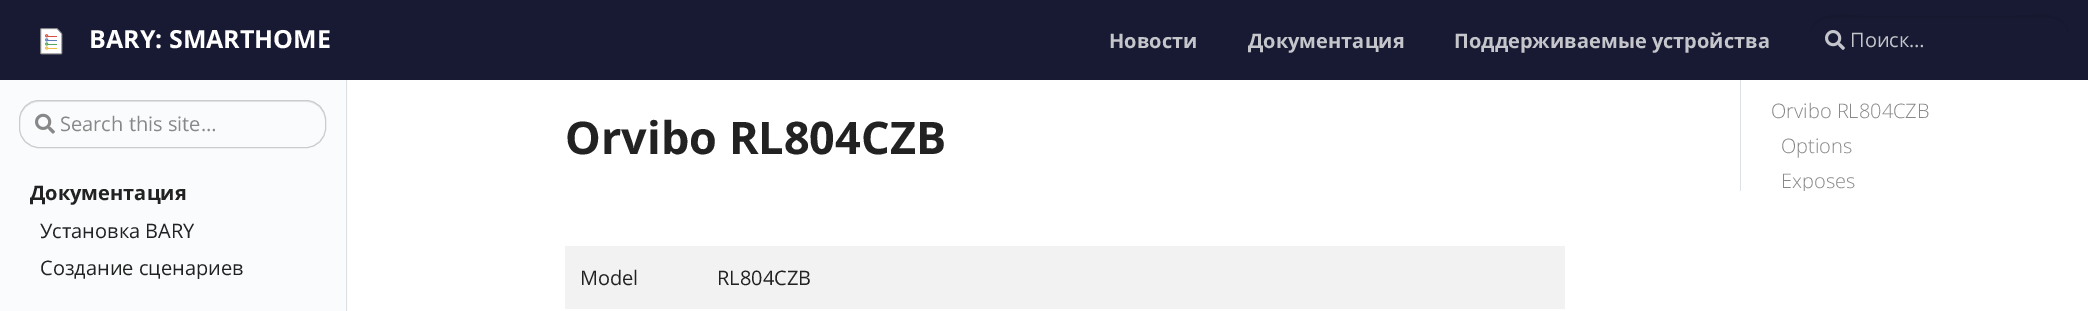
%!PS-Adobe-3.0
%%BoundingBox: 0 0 2088 311
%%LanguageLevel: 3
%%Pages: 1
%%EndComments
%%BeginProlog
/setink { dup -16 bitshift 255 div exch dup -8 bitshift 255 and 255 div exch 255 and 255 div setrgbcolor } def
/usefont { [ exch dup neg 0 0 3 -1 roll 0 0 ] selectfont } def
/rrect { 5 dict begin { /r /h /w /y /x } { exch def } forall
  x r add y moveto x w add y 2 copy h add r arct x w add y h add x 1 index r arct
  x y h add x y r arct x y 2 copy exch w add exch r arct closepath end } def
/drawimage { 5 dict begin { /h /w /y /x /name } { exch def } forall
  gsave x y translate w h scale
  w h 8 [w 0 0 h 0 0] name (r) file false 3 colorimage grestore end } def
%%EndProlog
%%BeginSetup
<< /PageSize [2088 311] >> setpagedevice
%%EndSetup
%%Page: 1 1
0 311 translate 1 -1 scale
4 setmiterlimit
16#FFFFFF setink
0 0 2088 311 rectfill
16#181A33 setink
0 0 2088 80 rectfill
(img1.raw) 40 28 23 27 drawimage
/OpenSans-Bold 25 usefont
16#FFFFFF setink
89 48 moveto (BARY: SMARTHOME) show
/OpenSans-Bold 20 usefont
16#C5C6CC setink
[
    [(Новости) 1109 48]
    [(Документация) 1248 48]
    [(Поддерживаемые устройства) 1454 48]
] { aload pop moveto show } forall
16#16182F setink
1830 18 moveto 2049 18 lineto 2060 18 2069 26 2069 38 curveto 2069 7 2032 16 2012 16 curveto 1866 16 lineto 1847 16 1810 7 1810 38 curveto 1810 26 1819 18 1830 18 curveto closepath fill
(img2.raw) 1825 30 20 20 drawimage
/OpenSans-Regular 20 usefont
16#C5C6CC setink
1850 47 moveto (Поиск…) show
16#F9FBFC setink
0 80 348 231 rectfill
16#DEE2E6 setink
346 80 1 231 rectfill
16#E6E8E9 setink
39 102 moveto 306 102 lineto 317 102 325 111 325 121 curveto 325 120 lineto 325 110 316 101 306 101 curveto 39 101 lineto 29 101 20 110 20 120 curveto 20 121 lineto 20 111 28 102 39 102 curveto closepath fill
16#CCCCCC setink
19.5 100.5 306 47 19.5 rrect stroke
(img3.raw) 35 113 20 21 drawimage
16#888888 setink
60 131 moveto (Search this site…) show
/OpenSans-Bold 20 usefont
16#222222 setink
30 200 moveto (Документация) show
/OpenSans-Regular 20 usefont
40 238 moveto (Установка BARY) show
gsave
0 168 345 111 rectclip
40 275 moveto (Создание сценариев) show
grestore
/OpenSans-Bold 45 usefont
565 154 moveto (Orvibo RL804CZB) show
16#F2F2F2 setink
565 246 1000 63 rectfill
/OpenSans-Regular 20 usefont
16#222222 setink
580 285 moveto (Model) show
717 285 moveto (RL804CZB) show
16#DEE2E6 setink
1740 80 1 111 rectfill
/OpenSans-Light 20 usefont
16#888888 setink
1771 118 moveto (Orvibo RL804CZB) show
1781 153 moveto (Options) show
gsave
1741 80 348 111 rectclip
1781 188 moveto (Exposes) show
grestore
showpage
%%EOF
